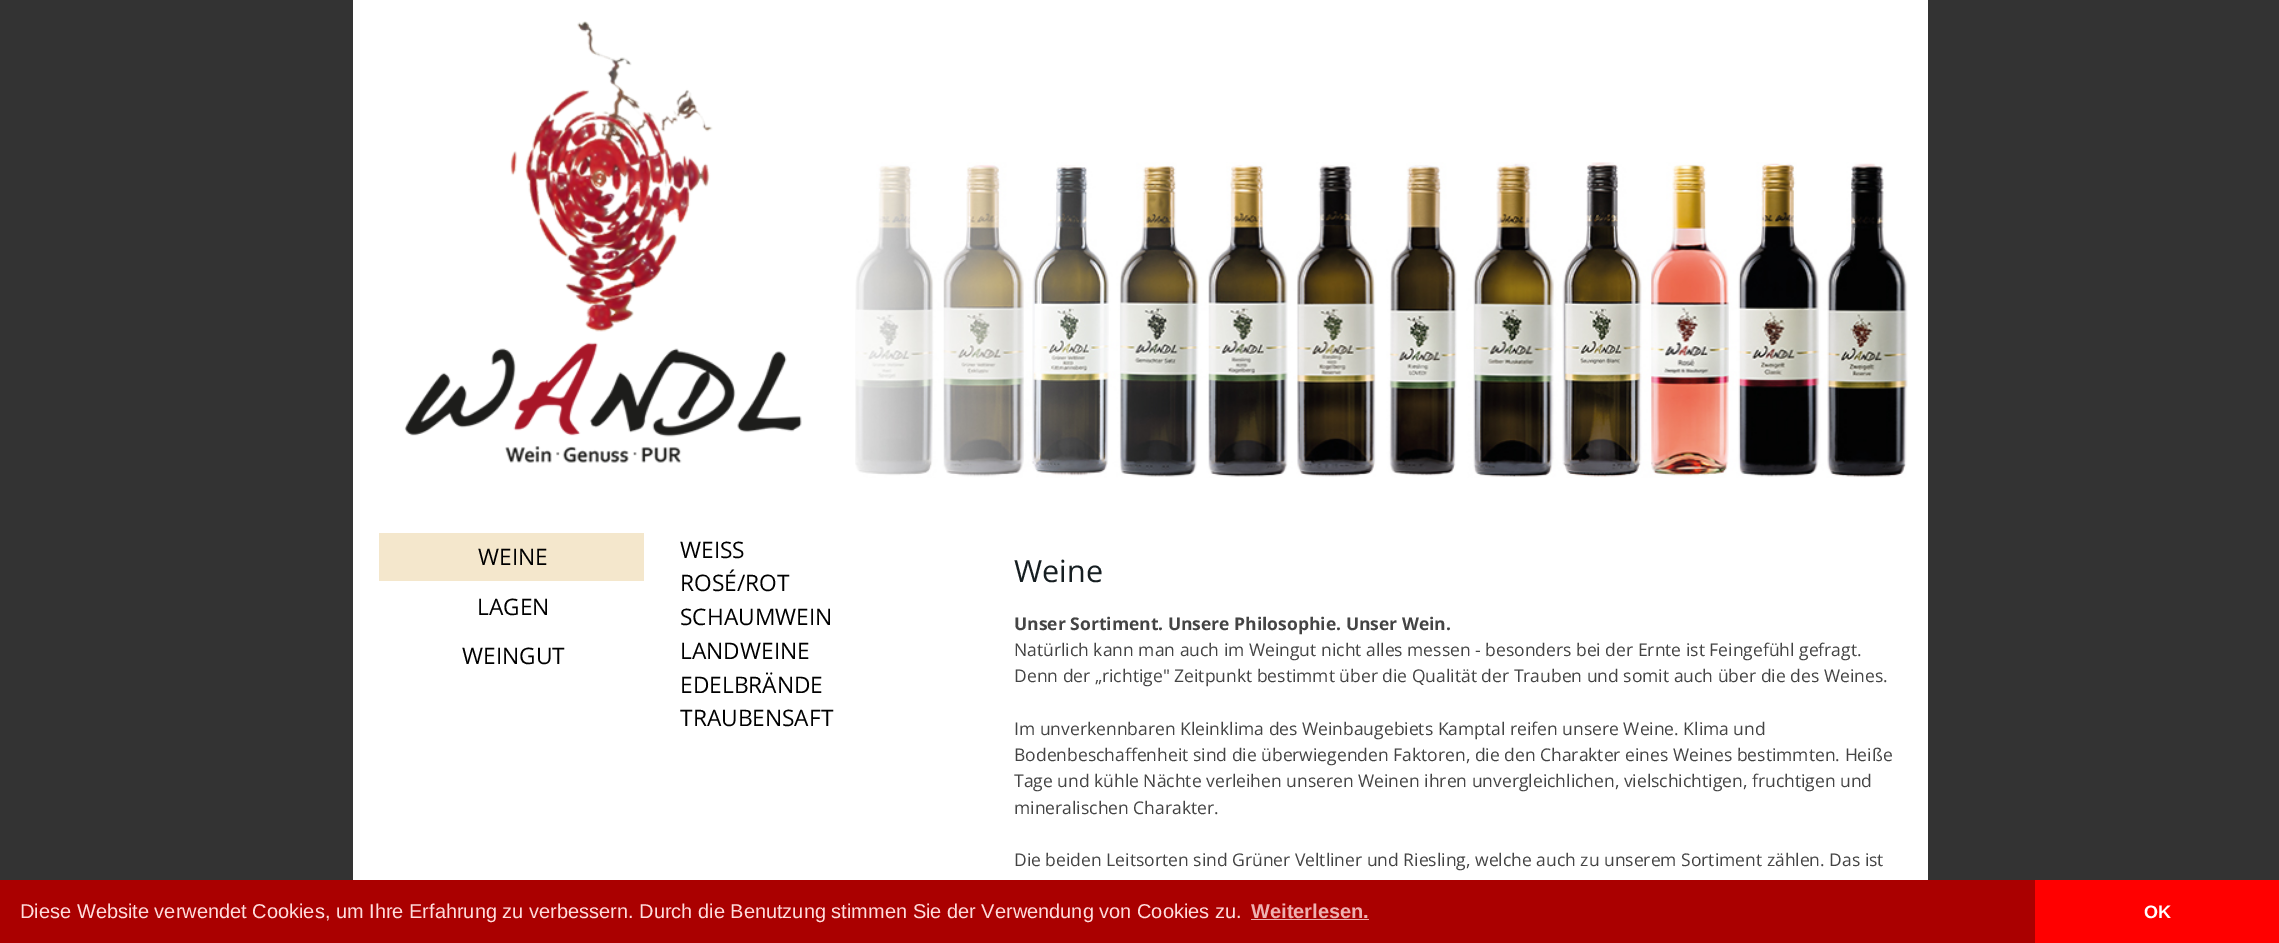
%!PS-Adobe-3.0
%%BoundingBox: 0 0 2279 943
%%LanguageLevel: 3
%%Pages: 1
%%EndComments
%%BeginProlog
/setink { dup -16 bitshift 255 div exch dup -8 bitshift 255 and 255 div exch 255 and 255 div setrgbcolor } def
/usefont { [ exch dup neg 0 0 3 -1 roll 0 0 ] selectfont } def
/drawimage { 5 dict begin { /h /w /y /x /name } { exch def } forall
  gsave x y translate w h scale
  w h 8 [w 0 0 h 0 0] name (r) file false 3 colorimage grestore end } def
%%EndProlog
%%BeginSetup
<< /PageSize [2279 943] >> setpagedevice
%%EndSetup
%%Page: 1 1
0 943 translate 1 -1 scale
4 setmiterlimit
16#333333 setink
0 0 2279 943 rectfill
16#FFFFFF setink
353 0 1575 880 rectfill
(img1.raw) 404 21 398 442 drawimage
(img2.raw) 855 162 1053 316 drawimage
16#F4E7CC setink
379 533 265 48 rectfill
/OpenSans-Regular 22.75 usefont
16#000000 setink
[
    [(WEINE) 478 565]
    [(LAGEN) 477 615]
    [(WEINGUT) 462 664]
    [(WEISS) 680 558]
    [(ROSÉ/ROT) 680 591]
    [(SCHAUMWEIN) 680 625]
    [(LANDWEINE) 680 659]
    [(EDELBRÄNDE) 680 693]
    [(TRAUBENSAFT) 680 726]
] { aload pop moveto show } forall
/OpenSans-Regular 30.5 usefont
16#161E21 setink
1014 582 moveto (Weine) show
/OpenSans-Bold 17.5 usefont
16#444444 setink
1014 630 moveto (Unser Sortiment. Unsere Philosophie. Unser Wein.) show
/OpenSans-Regular 17.5 usefont
[
    [(Natürlich kann man auch im Weingut nicht alles messen - besonders bei der Ernte ist Feingefühl gefragt.) 1014 656]
    [(Denn der „richtige" Zeitpunkt bestimmt über die Qualität der Trauben und somit auch über die des Weines.) 1014 682]
    [(Im unverkennbaren Kleinklima des Weinbaugebiets Kamptal reifen unsere Weine. Klima und) 1014 735]
    [(Bodenbeschaffenheit sind die überwiegenden Faktoren, die den Charakter eines Weines bestimmten. Heiße) 1014 761]
    [(Tage und kühle Nächte verleihen unseren Weinen ihren unvergleichlichen, vielschichtigen, fruchtigen und) 1014 787]
    [(mineralischen Charakter.) 1014 814]
    [(Die beiden Leitsorten sind Grüner Veltliner und Riesling, welche auch zu unserem Sortiment zählen. Das ist) 1014 866]
] { aload pop moveto show } forall
16#AA0000 setink
0 880 2035 63 rectfill
/LiberationSans-Regular 20 usefont
16#FFDDDD setink
20 918 moveto (Diese Website verwendet Cookies, um Ihre Erfahrung zu verbessern. Durch die Benutzung stimmen Sie der Verwendung von Cookies zu.) show
/LiberationSans-Bold 20 usefont
16#EEB1B1 setink
1251 918 moveto (Weiterlesen.) show
1251 919 118 1 rectfill
16#FF0000 setink
2035 880 244 63 rectfill
/LiberationSans-Bold 18 usefont
16#FFFFFF setink
2144 918 moveto (OK) show
showpage
%%EOF
